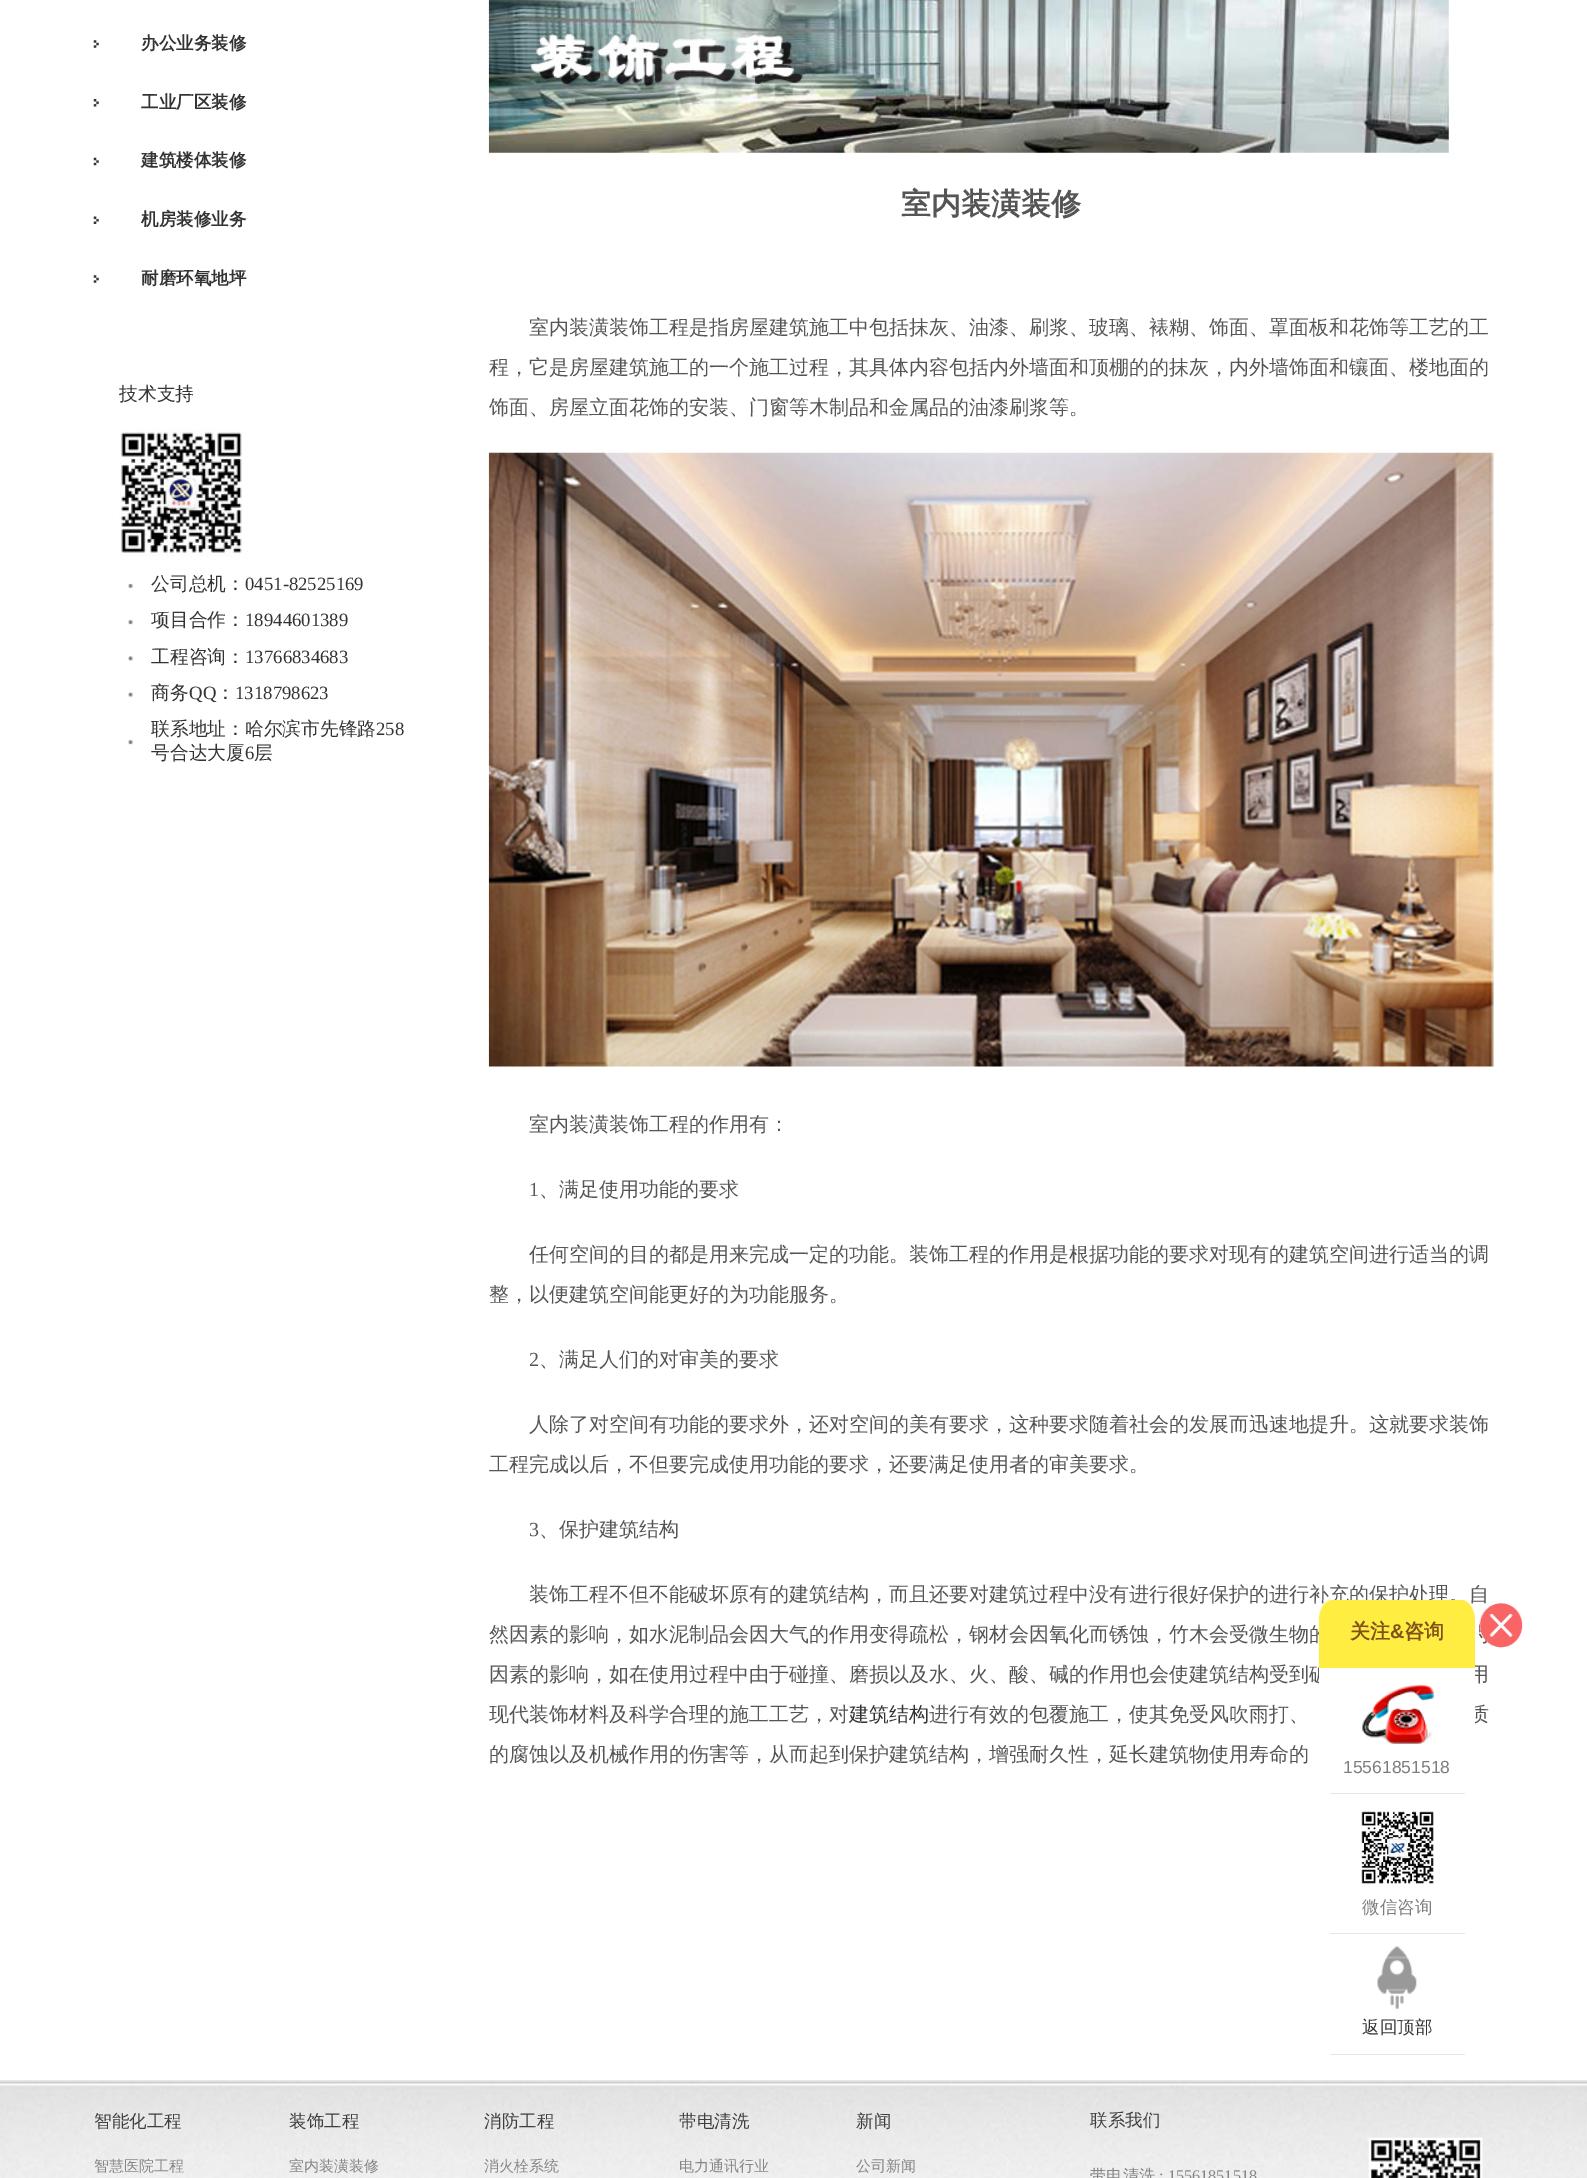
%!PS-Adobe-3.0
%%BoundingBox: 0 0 1587 2178
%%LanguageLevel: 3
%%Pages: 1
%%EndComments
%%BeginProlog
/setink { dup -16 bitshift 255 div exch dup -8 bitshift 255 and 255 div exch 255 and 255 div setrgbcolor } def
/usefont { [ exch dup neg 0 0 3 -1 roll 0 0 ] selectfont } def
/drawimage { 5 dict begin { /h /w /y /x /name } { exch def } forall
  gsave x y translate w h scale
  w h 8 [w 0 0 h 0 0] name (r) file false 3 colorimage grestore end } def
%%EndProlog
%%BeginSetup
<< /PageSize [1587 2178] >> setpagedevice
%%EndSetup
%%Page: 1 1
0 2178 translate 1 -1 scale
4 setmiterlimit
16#FFFFFF setink
0 0 1587 2178 rectfill
(img1.raw) 93 40 6 8 drawimage
/WenQuanYiZenHei-Bold 17.5 usefont
16#333333 setink
141 49 moveto (办公业务装修) show
(img2.raw) 93 99 6 8 drawimage
141 108 moveto (工业厂区装修) show
(img3.raw) 93 157 6 9 drawimage
141 166 moveto (建筑楼体装修) show
(img4.raw) 93 216 6 8 drawimage
141 225 moveto (机房装修业务) show
(img1.raw) 93 275 6 8 drawimage
141 284 moveto (耐磨环氧地坪) show
/WenQuanYiZenHei-Medium 18.75 usefont
119 400 moveto (技术支持) show
(img5.raw) 119 429 123 128 drawimage
(img6.raw) 128 583 5 5 drawimage
151 590 moveto (公司总机：) show
/LiberationSerif-Regular 18.75 usefont
245 590 moveto (0451-82525169) show
(img7.raw) 128 620 5 5 drawimage
/WenQuanYiZenHei-Medium 18.75 usefont
151 626 moveto (项目合作：) show
/LiberationSerif-Regular 18.75 usefont
245 626 moveto (18944601389) show
(img8.raw) 128 656 5 5 drawimage
/WenQuanYiZenHei-Medium 18.75 usefont
151 663 moveto (工程咨询：) show
/LiberationSerif-Regular 18.75 usefont
245 663 moveto (13766834683) show
(img9.raw) 128 692 5 5 drawimage
/WenQuanYiZenHei-Medium 18.75 usefont
151 699 moveto (商务) show
/LiberationSerif-Regular 18.75 usefont
189 699 moveto (QQ) show
/WenQuanYiZenHei-Medium 18.75 usefont
216 699 moveto (：) show
/LiberationSerif-Regular 18.75 usefont
235 699 moveto (1318798623) show
(img7.raw) 128 740 5 5 drawimage
/WenQuanYiZenHei-Medium 18.75 usefont
151 735 moveto (联系地址：哈尔滨市先锋路) show
/LiberationSerif-Regular 18.75 usefont
376 735 moveto (258) show
/WenQuanYiZenHei-Medium 18.75 usefont
151 759 moveto (号合达大厦) show
/LiberationSerif-Regular 18.75 usefont
245 759 moveto (6) show
/WenQuanYiZenHei-Medium 18.75 usefont
254 759 moveto (层) show
(img10.raw) 488 0 961 153 drawimage
/WenQuanYiZenHei-Bold 30 usefont
16#555555 setink
901 214 moveto (室内装潢装修) show
/WenQuanYiZenHei-Medium 20 usefont
[
    [(室内装潢装饰工程是指房屋建筑施工中包括抹灰、油漆、刷浆、玻璃、裱糊、饰面、罩面板和花饰等工艺的工) 529 334]
    [(程，它是房屋建筑施工的一个施工过程，其具体内容包括内外墙面和顶棚的的抹灰，内外墙饰面和镶面、楼地面的) 489 374]
    [(饰面、房屋立面花饰的安装、门窗等木制品和金属品的油漆刷浆等。) 489 414]
] { aload pop moveto show } forall
(img11.raw) 488 452 1006 615 drawimage
529 1131 moveto (室内装潢装饰工程的作用有：) show
/LiberationSerif-Regular 20 usefont
529 1196 moveto (1) show
/WenQuanYiZenHei-Medium 20 usefont
[
    [(、满足使用功能的要求) 539 1196]
    [(任何空间的目的都是用来完成一定的功能。装饰工程的作用是根据功能的要求对现有的建筑空间进行适当的调) 529 1261]
    [(整，以便建筑空间能更好的为功能服务。) 489 1301]
] { aload pop moveto show } forall
/LiberationSerif-Regular 20 usefont
529 1366 moveto (2) show
/WenQuanYiZenHei-Medium 20 usefont
[
    [(、满足人们的对审美的要求) 539 1366]
    [(人除了对空间有功能的要求外，还对空间的美有要求，这种要求随着社会的发展而迅速地提升。这就要求装饰) 529 1431]
    [(工程完成以后，不但要完成使用功能的要求，还要满足使用者的审美要求。) 489 1471]
] { aload pop moveto show } forall
/LiberationSerif-Regular 20 usefont
529 1536 moveto (3) show
/WenQuanYiZenHei-Medium 20 usefont
[
    [(、保护建筑结构) 539 1536]
    [(装饰工程不但不能破坏原有的建筑结构，而且还要对建筑过程中没有进行很好保护的进行补充的保护处理。自) 529 1601]
    [(然因素的影响，如水泥制品会因大气的作用变得疏松，钢材会因氧化而锈蚀，竹木会受微生物的) 489 1641]
    [(因素的影响，如在使用过程中由于碰撞、磨损以及水、火、酸、碱的作用也会使建筑结构受到破) 489 1681]
    [(用) 1469 1681]
    [(现代装饰材料及科学合理的施工工艺，对) 489 1721]
] { aload pop moveto show } forall
16#333333 setink
849 1721 moveto (建筑结构) show
16#555555 setink
[
    [(进行有效的包覆施工，使其免受风吹雨打、) 929 1721]
    [(质) 1469 1721]
    [(的腐蚀以及机械作用的伤害等，从而起到保护建筑结构，增强耐久性，延长建筑物使用寿命的) 489 1761]
] { aload pop moveto show } forall
(img12.raw) 1318 1600 157 76 drawimage
/WenQuanYiZenHei-Bold 20 usefont
16#81511C setink
1350 1638 moveto (关注) show
/LiberationSans-Bold 20 usefont
1390 1638 moveto (&) show
/WenQuanYiZenHei-Bold 20 usefont
1404 1638 moveto (咨询) show
16#FFFFFF setink
1319 1668 156 56 rectfill
16#E5E5E5 setink
1330 1793 135 1 rectfill
(img13.raw) 1362 1684 72 60 drawimage
/LiberationSans-Regular 17.5 usefont
16#7D7D7D setink
1343 1773 moveto (15561851518) show
16#E5E5E5 setink
1330 1933 135 1 rectfill
(img14.raw) 1361 1811 73 73 drawimage
/WenQuanYiZenHei-Medium 17.5 usefont
16#7D7D7D setink
1362 1913 moveto (微信咨询) show
16#E5E5E5 setink
1330 2054 135 1 rectfill
(img15.raw) 1377 1946 40 63 drawimage
16#333333 setink
1362 2033 moveto (返回顶部) show
(img16.raw) 1479 1603 44 45 drawimage
(img17.raw) 0 2081 1587 97 drawimage
16#E5E6E5 setink
0 2080 1587 1 rectfill
16#3E3E3E setink
94 2127 moveto (智能化工程) show
/WenQuanYiZenHei-Medium 15 usefont
16#868686 setink
94 2171 moveto (智慧医院工程) show
/WenQuanYiZenHei-Medium 17.5 usefont
16#3E3E3E setink
289 2127 moveto (装饰工程) show
/WenQuanYiZenHei-Medium 15 usefont
16#868686 setink
289 2171 moveto (室内装潢装修) show
/WenQuanYiZenHei-Medium 17.5 usefont
16#3E3E3E setink
484 2127 moveto (消防工程) show
/WenQuanYiZenHei-Medium 15 usefont
16#868686 setink
484 2171 moveto (消火栓系统) show
/WenQuanYiZenHei-Medium 17.5 usefont
16#3E3E3E setink
679 2127 moveto (带电清洗) show
/WenQuanYiZenHei-Medium 15 usefont
16#868686 setink
679 2171 moveto (电力通讯行业) show
/WenQuanYiZenHei-Medium 17.5 usefont
16#3E3E3E setink
856 2127 moveto (新闻) show
/WenQuanYiZenHei-Medium 15 usefont
16#868686 setink
856 2171 moveto (公司新闻) show
/WenQuanYiZenHei-Medium 17.5 usefont
16#3E3E3E setink
1090 2126 moveto (联系我们) show
/WenQuanYiZenHei-Medium 16.25 usefont
16#868686 setink
1090 2181 moveto (带电清洗) show
/LiberationSerif-Regular 16.25 usefont
1159 2181 moveto (: 15561851518) show
(img18.raw) 1368 2137 115 41 drawimage
showpage
%%EOF
